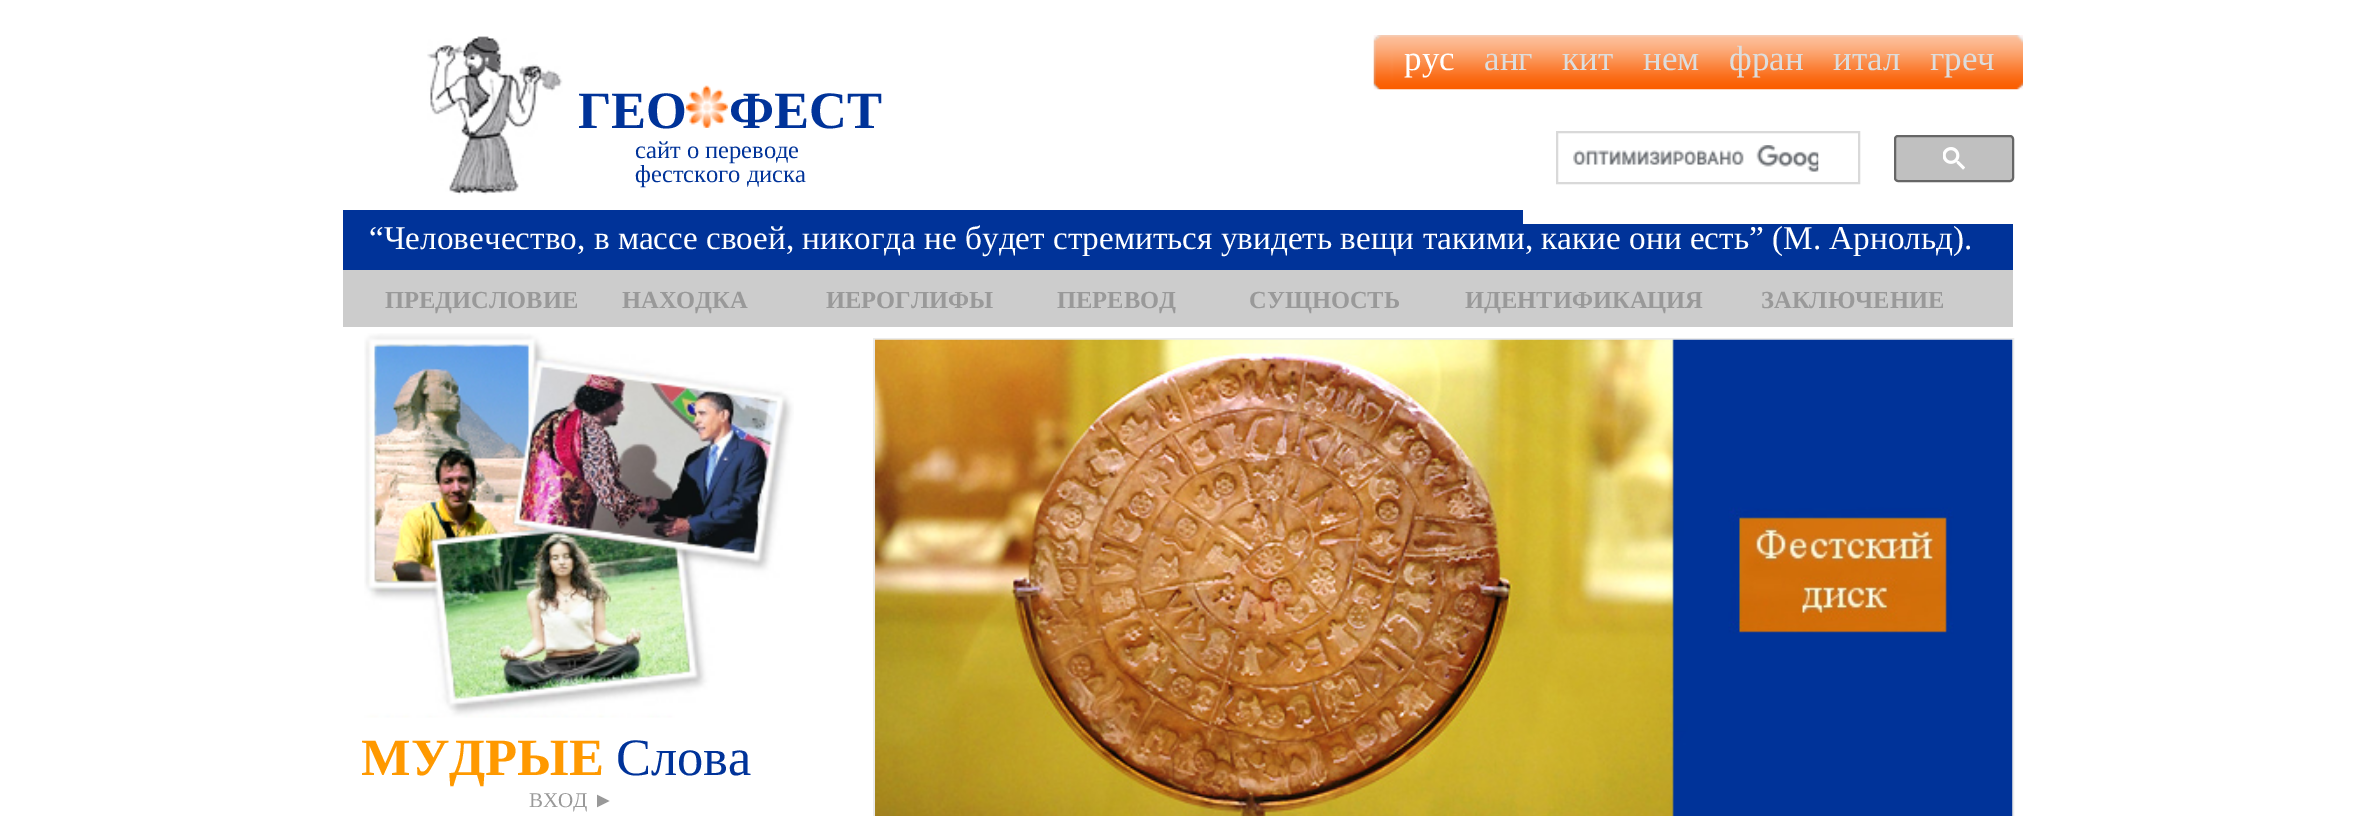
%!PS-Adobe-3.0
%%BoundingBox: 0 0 2366 816
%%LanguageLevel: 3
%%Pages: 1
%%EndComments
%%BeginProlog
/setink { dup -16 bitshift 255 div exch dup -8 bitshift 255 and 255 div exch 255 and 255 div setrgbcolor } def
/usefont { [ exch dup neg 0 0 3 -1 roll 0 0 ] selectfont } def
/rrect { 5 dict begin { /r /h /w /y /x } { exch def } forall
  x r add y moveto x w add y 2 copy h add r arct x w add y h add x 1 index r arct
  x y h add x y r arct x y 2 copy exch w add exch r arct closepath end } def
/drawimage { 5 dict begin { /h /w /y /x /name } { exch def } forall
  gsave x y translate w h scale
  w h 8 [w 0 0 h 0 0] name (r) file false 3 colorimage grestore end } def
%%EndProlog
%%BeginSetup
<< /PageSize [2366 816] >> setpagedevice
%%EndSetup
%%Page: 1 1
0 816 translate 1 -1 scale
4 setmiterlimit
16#FFFFFF setink
0 0 2366 816 rectfill
(img1.raw) 1373 35 650 55 drawimage
/LiberationSerif-Regular 35 usefont
1404 70 moveto (рус) show
16#DDDDDD setink
[
    [(анг) 1484 70]
    [(кит) 1562 70]
    [(нем) 1643 70]
    [(фран) 1729 70]
    [(итал) 1833 70]
    [(греч) 1930 70]
] { aload pop moveto show } forall
16#003399 setink
343 210 1670 60 rectfill
16#FFFFFF setink
1523 210 490 14 rectfill
16#D9D9D9 setink
2 setlinewidth
1557 132 302 51 rectstroke
(img2.raw) 1573 145 246 27 drawimage
16#C0C0C0 setink
1895 136 118 45 3 rrect gsave fill grestore
16#666666 setink
stroke
(img3.raw) 1943 147 22 23 drawimage
(img4.raw) 427 36 136 159 drawimage
/LiberationSerif-Bold 52.5 usefont
16#003399 setink
578 128 moveto (ГЕО) show
(img5.raw) 686 85 42 43 drawimage
729 128 moveto (ФЕСТ) show
/LiberationSerif-Regular 24.5 usefont
635 158 moveto (сайт о переводе) show
635 182 moveto (фестского диска) show
/LiberationSerif-Regular 33.25 usefont
16#FFFFFF setink
369 249 moveto (“Человечество, в массе своей, никогда не будет стремиться увидеть вещи такими, какие они есть” \(М. Арнольд\).) show
16#CCCCCC setink
343 270 1670 57 rectfill
/LiberationSerif-Bold 24.5 usefont
16#999999 setink
[
    [(ПРЕДИСЛОВИЕ) 385 308]
    [(НАХОДКА) 622 308]
    [(ИЕРОГЛИФЫ) 826 308]
    [(ПЕРЕВОД) 1057 308]
    [(СУЩНОСТЬ) 1249 308]
    [(ИДЕНТИФИКАЦИЯ) 1465 308]
    [(ЗАКЛЮЧЕНИЕ) 1761 308]
] { aload pop moveto show } forall
(img6.raw) 364 333 430 385 drawimage
/LiberationSerif-Bold 52.5 usefont
16#FF9900 setink
361 775 moveto (МУДРЫЕ) show
/LiberationSerif-Regular 52.5 usefont
16#003399 setink
616 775 moveto (Слова) show
/LiberationSerif-Regular 21 usefont
16#999999 setink
529 807 moveto (ВХОД ►) show
16#EBEBEA setink
874 339 1139 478 rectstroke
(img7.raw) 875 339 1138 477 drawimage
showpage
%%EOF
